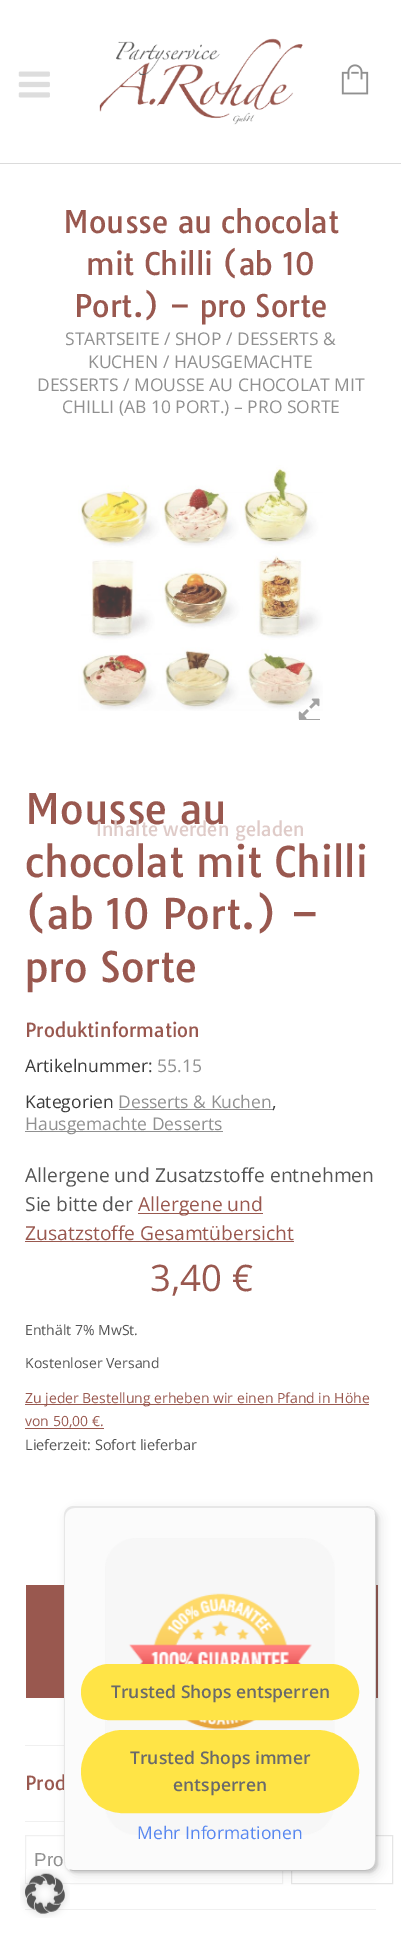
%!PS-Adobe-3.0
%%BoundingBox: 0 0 401 1938
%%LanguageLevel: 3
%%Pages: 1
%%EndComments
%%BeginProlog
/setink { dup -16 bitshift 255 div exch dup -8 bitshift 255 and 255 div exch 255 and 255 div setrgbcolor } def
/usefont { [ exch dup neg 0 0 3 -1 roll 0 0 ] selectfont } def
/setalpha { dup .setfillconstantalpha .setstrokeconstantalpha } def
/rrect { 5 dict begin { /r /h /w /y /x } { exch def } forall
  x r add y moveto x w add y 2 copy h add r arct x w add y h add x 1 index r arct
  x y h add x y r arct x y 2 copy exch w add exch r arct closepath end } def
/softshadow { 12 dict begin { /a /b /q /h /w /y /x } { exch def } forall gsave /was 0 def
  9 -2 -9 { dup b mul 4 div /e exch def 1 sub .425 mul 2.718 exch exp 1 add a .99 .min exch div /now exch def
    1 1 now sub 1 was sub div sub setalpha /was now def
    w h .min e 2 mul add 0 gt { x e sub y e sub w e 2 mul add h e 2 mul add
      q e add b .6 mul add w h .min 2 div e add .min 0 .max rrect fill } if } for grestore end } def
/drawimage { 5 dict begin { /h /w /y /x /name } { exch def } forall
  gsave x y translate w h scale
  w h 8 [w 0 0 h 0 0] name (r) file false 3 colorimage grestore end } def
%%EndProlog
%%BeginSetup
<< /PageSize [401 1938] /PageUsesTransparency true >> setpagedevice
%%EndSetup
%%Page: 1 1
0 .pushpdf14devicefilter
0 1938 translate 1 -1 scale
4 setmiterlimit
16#FFFFFF setink
0 0 401 1938 rectfill
16#DBDBDB setink
0 163 401 1 rectfill
(img1.raw) 18 71 32 27 drawimage
(img2.raw) 99 38 204 87 drawimage
(img3.raw) 341 64 28 31 drawimage
/Tauri-Regular 30 usefont
16#99584F setink
[
    [(Mousse au chocolat) 63 233]
    [(mit Chilli \(ab 10) 86 275]
    [(Port.\) – pro Sorte) 74 317]
] { aload pop moveto show } forall
/OpenSans-Regular 17.5 usefont
16#909090 setink
[
    [(STARTSEITE / SHOP / DESSERTS &) 65 345]
    [(KUCHEN / HAUSGEMACHTE) 88 368]
    [(DESSERTS / MOUSSE AU CHOCOLAT MIT) 37 391]
    [(CHILLI \(AB 10 PORT.\) – PRO SORTE) 62 413]
] { aload pop moveto show } forall
(img4.raw) 78 465 245 246 drawimage
16#A3A3A3 setink
299 719 21 1 rectfill
(img5.raw) 298 698 22 21 drawimage
/Tauri-Regular 40.5 usefont
16#99584F setink
[
    [(Mousse au) 25 824]
    [(chocolat mit Chilli) 25 877]
    [(\(ab 10 Port.\) –) 25 929]
    [(pro Sorte) 25 982]
] { aload pop moveto show } forall
/Tauri-Regular 18.75 usefont
25 1037 moveto (Produktinformation) show
/OpenSans-Regular 17.5 usefont
16#3B3B3B setink
25 1072 moveto (Artikelnummer:) show
16#909090 setink
157 1072 moveto (55.15) show
16#3B3B3B setink
25 1108 moveto (Kategorien) show
16#909090 setink
118 1108 moveto (Desserts & Kuchen) show
119 1109 154 1 rectfill
16#3B3B3B setink
272 1108 moveto (,) show
16#909090 setink
25 1131 198 1 rectfill
25 1130 moveto (Hausgemachte Desserts) show
/OpenSans-Regular 19.25 usefont
16#545454 setink
25 1182 moveto (Allergene und Zusatzstoffe entnehmen) show
25 1211 moveto (Sie bitte der) show
16#99594F setink
138 1213 125 1 rectfill
16#99584F setink
138 1211 moveto (Allergene und) show
25 1240 moveto (Zusatzstoffe Gesamtübersicht) show
16#99594F setink
25 1241 269 1 rectfill
/OpenSans-Regular 36.5 usefont
16#99584F setink
150 1291 moveto (3,40 €) show
/OpenSans-Regular 14 usefont
16#545454 setink
25 1335 moveto (Enthält 7% MwSt.) show
25 1368 moveto (Kostenloser Versand) show
16#99594F setink
25 1404 344 1 rectfill
16#99584F setink
25 1403 moveto (Zu jeder Bestellung erheben wir einen Pfand in Höhe) show
25 1426 moveto (von 50,00 €.) show
16#99594F setink
25 1428 79 1 rectfill
/OpenSans-Regular 14.5 usefont
16#545454 setink
25 1450 moveto (Lieferzeit: Sofort lieferbar) show
[
    [26 1585 352 113 16#99584F]
    [25 1745 39 1 16#F0F0F0]
    [25 1821 39 1 16#F0F0F0]
] { aload pop setink rectfill } forall
/Tauri-Regular 18.75 usefont
16#99584F setink
25 1790 moveto (Prod) show
16#F0F0F0 setink
25.5 1835.5 257 48 rectstroke
/LiberationSans-Regular 18.75 usefont
16#909090 setink
34 1866 moveto (Pro) show
16#E5E5E5 setink
291.5 1835.5 101 48 rectstroke
16#F0F0F0 setink
25 1909 351 1 rectfill
/Tauri-Regular 18.75 usefont
16#DFCBC8 setink
96 836 moveto (Inhalte werden geladen) show
16#3B3B3B setink
68 1510 312 365 10 5 0.15 softshadow
65 1508 313 365 10 1 0.15 softshadow
16#FBFBFB setink
64 1506 312 365 10 rrect fill
0.1 setalpha
16#3B3B3B setink
75 1508 moveto 368 1508 lineto 370 1508 372 1509 374 1510 curveto 372 1508 369 1506 366 1506 curveto 74 1506 lineto 68 1506 64 1510 64 1516 curveto 64 1861 lineto 64 1863 65 1866 66 1867 curveto 65 1866 65 1864 65 1862 curveto 65 1518 lineto 65 1512 69 1508 75 1508 curveto closepath fill
0.2 setalpha
68 1869 moveto 70 1870 72 1871 74 1871 curveto 366 1871 lineto 372 1871 376 1867 376 1861 curveto 376 1516 lineto 376 1514 375 1511 374 1510 curveto 375 1511 375 1513 375 1515 curveto 375 1860 lineto 375 1866 371 1870 365 1870 curveto 72 1870 lineto closepath fill
16#616161 setink
68 1869 moveto 69 1870 72 1871 74 1871 curveto 366 1871 lineto 372 1871 376 1867 376 1861 curveto 376 1860 lineto 376 1866 371 1870 366 1870 curveto 73 1870 lineto 71 1870 69 1870 68 1869 curveto closepath 374 1510 moveto 372 1507 369 1506 366 1506 curveto 369 1506 372 1507 374 1510 curveto closepath eofill
0.3 setalpha
16#FFFFFF setink
366 1871 moveto 372 1871 376 1867 376 1861 curveto 376 1866 371 1871 366 1871 curveto closepath 374 1510 moveto 372 1507 369 1506 366 1506 curveto 369 1506 372 1507 374 1510 curveto closepath eofill
1 setalpha
(img6.raw) 105 1538 230 297 drawimage
16#FFE446 setink
82.5 1665.5 275 53 26.5 rrect gsave fill grestore
3 setlinewidth
stroke
/OpenSans-SemiBold 17.5 usefont
16#6A6A6A setink
111 1698 moveto (Trusted Shops entsperren) show
16#FFE446 setink
82.5 1731.5 275 80 40 rrect gsave fill grestore
stroke
16#6A6A6A setink
130 1764 moveto (Trusted Shops immer) show
173 1791 moveto (entsperren) show
/OpenSans-Regular 17.5 usefont
16#5787F0 setink
137 1839 moveto (Mehr Informationen) show
(img7.raw) 20 1869 50 49 drawimage
.poppdf14devicefilter showpage
%%EOF
